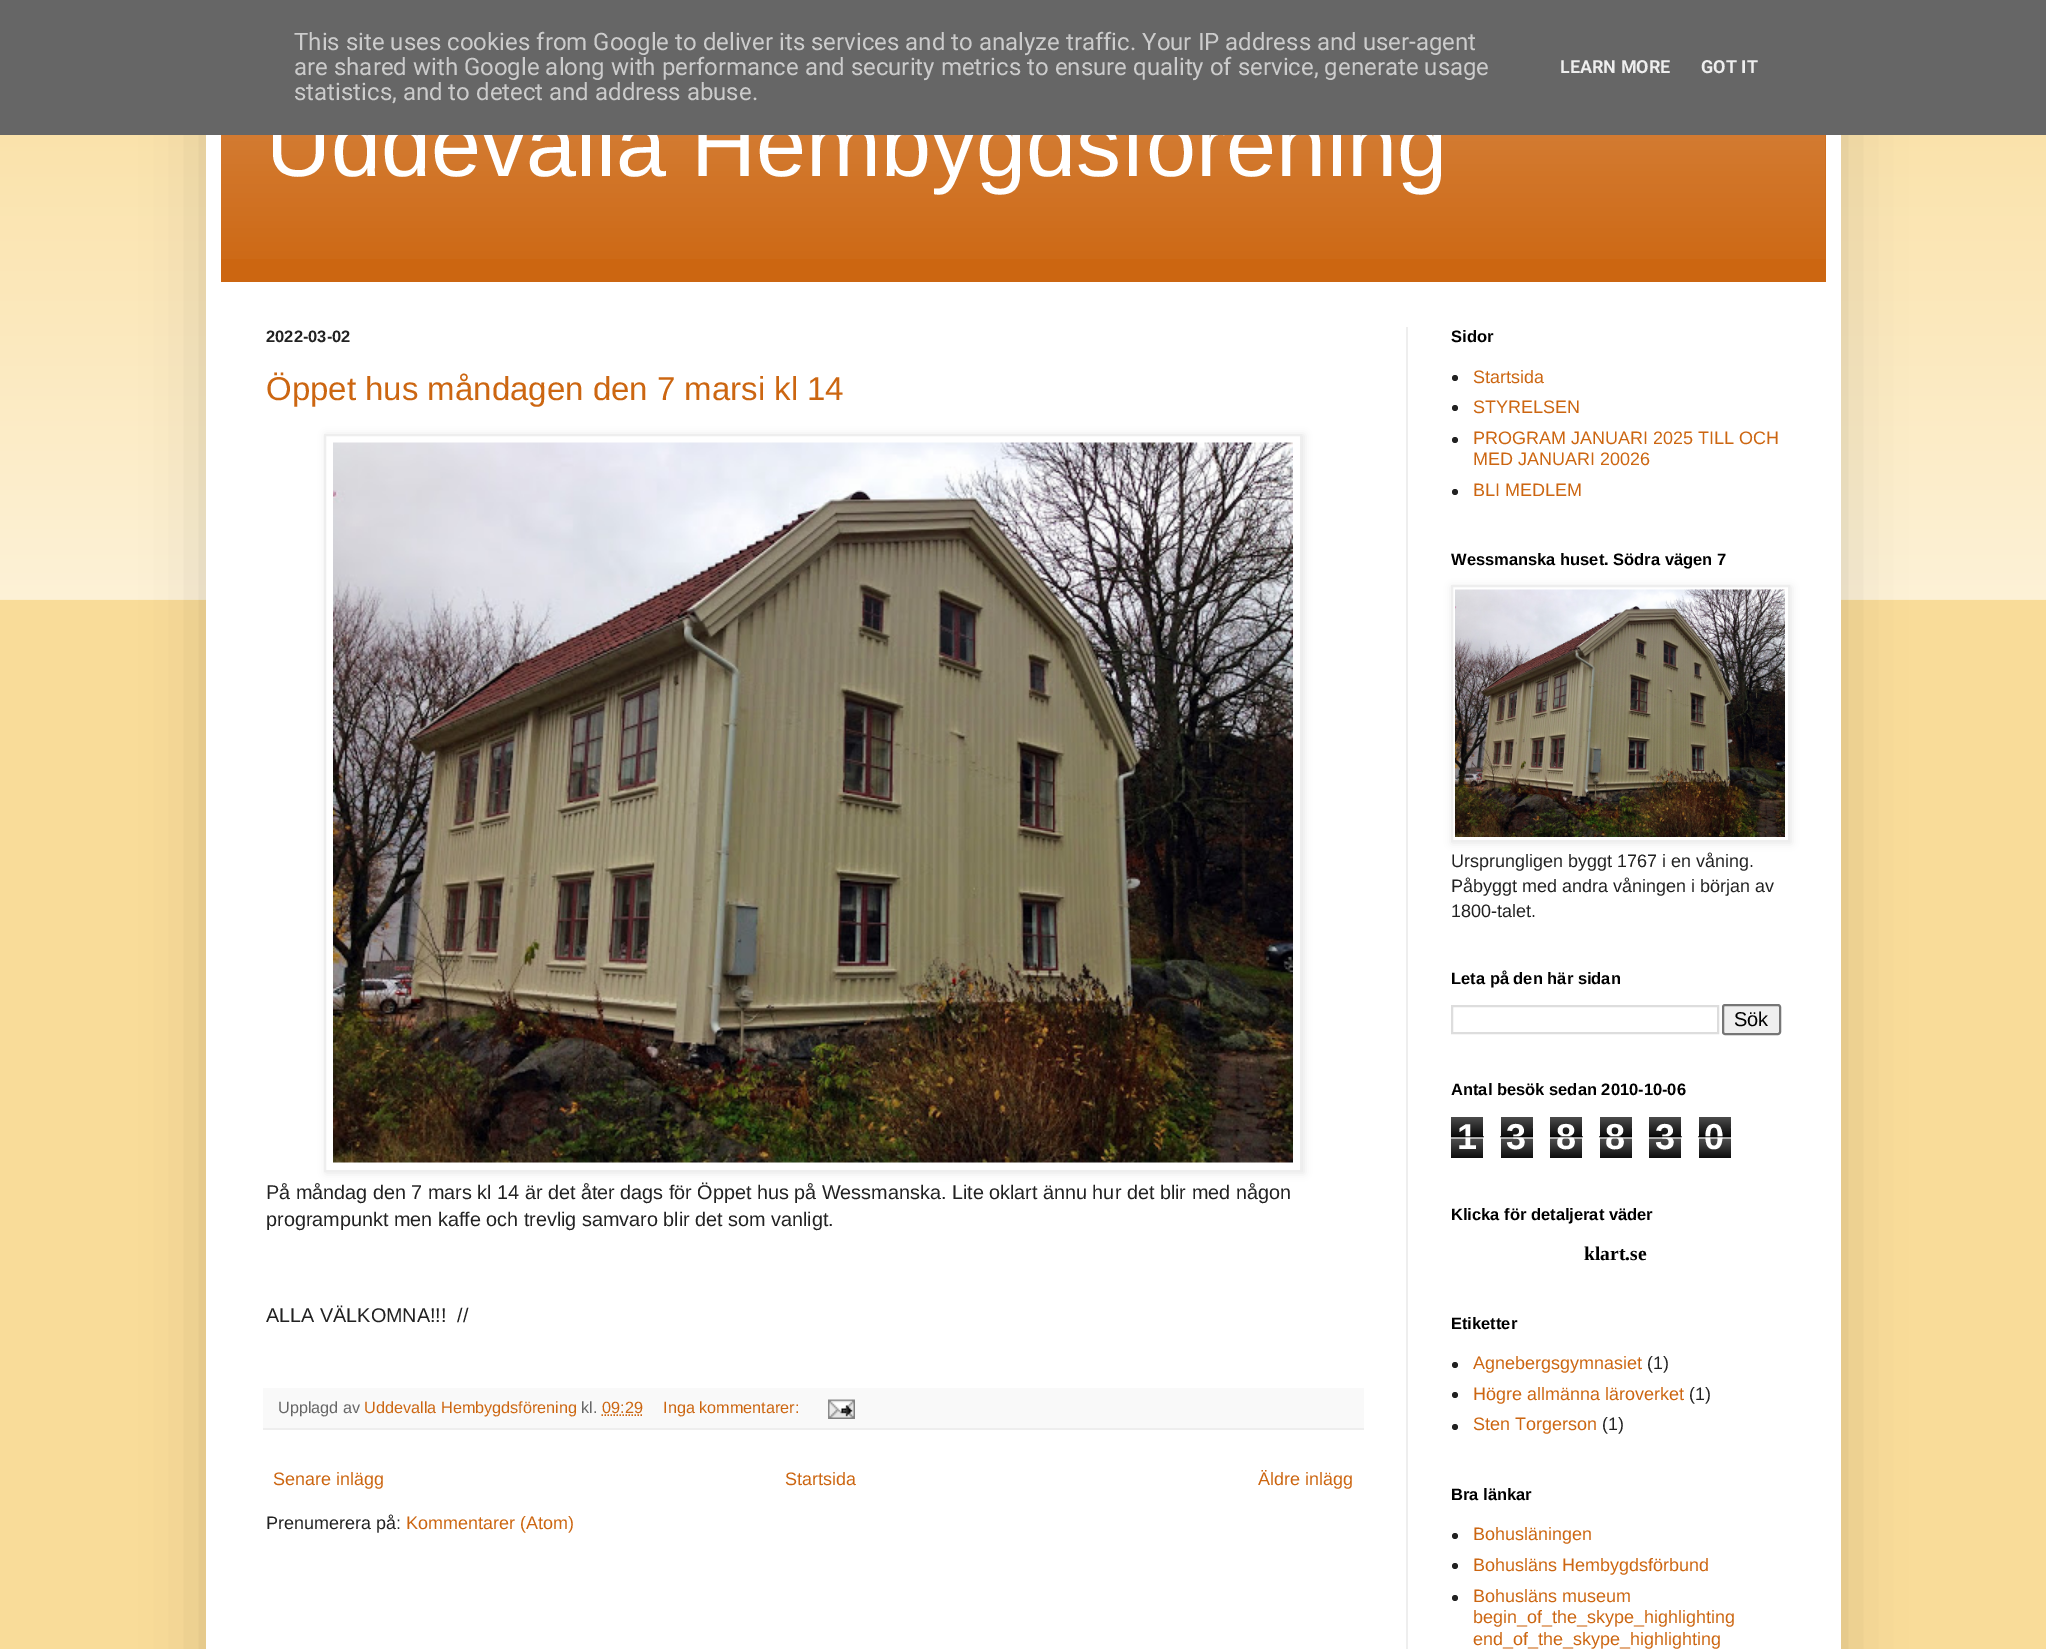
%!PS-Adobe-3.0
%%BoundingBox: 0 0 2046 1649
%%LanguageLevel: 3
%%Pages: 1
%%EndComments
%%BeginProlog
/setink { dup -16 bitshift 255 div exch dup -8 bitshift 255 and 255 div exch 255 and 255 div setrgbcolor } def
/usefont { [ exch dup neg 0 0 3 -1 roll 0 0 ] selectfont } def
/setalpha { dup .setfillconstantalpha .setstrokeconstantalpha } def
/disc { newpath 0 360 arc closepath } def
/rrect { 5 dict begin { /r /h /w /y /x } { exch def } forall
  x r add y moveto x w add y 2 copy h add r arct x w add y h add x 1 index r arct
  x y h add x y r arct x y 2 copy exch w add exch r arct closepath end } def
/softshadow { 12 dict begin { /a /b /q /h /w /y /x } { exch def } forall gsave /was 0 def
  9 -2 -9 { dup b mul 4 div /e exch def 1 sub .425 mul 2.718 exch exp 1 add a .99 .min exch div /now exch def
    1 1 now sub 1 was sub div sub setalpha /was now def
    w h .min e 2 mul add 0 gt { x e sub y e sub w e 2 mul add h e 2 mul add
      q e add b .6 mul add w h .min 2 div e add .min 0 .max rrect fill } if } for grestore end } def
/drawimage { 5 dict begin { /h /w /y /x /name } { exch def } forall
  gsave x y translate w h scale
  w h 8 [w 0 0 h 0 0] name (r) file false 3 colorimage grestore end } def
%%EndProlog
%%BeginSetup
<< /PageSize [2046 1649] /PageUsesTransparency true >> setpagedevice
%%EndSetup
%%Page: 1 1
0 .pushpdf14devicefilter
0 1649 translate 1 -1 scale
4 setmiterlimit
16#F9DC99 setink
0 0 2046 1649 rectfill
(img7.raw) 0 135 2046 465 drawimage
16#000000 setink
206 45 1635 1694 0 30 0.15 softshadow
16#FFFFFF setink
206 135 1635 1514 rectfill
16#CC6611 setink
221 135 1605 147 rectfill
(img1.raw) 221 135 1605 124 drawimage
/LiberationSans-Regular 90 usefont
16#FFFFFF setink
266 176 moveto (Uddevalla Hembygdsförening) show
16#666666 setink
0 0 2046 135 rectfill
/Roboto-Regular 24 usefont
16#CCCCCC setink
[
    [(This site uses cookies from Google to deliver its services and to analyze traffic. Your IP address and user-agent) 294 50]
    [(are shared with Google along with performance and security metrics to ensure quality of service, generate usage) 294 75]
    [(statistics, and to detect and address abuse.) 294 100]
] { aload pop moveto show } forall
/Roboto-Bold 18 usefont
16#EEEEEE setink
1560 73 moveto (LEARN MORE) show
1701 73 moveto (GOT IT) show
1406 327 2 1322 rectfill
/LiberationSans-Bold 16.5 usefont
16#222222 setink
266 342 moveto (2022-03-02) show
/LiberationSans-Regular 33 usefont
16#CC6611 setink
266 400 moveto (Öppet hus måndagen den 7 marsi kl 14) show
16#000000 setink
326 435 978 738 0 4 0.1 softshadow
16#FFFFFF setink
325 435 moveto 1301 435 lineto 1301 1171 lineto 325 1171 lineto closepath gsave fill grestore
16#EEEEEE setink
2 setlinewidth
stroke
(img2.raw) 333 442 960 721 drawimage
/LiberationSans-Regular 19.8 usefont
16#222222 setink
[
    [(På måndag den 7 mars kl 14 är det åter dags för Öppet hus på Wessmanska. Lite oklart ännu hur det blir med någon) 266 1199]
    [(programpunkt men kaffe och trevlig samvaro blir det som vanligt.) 266 1226]
    [(ALLA VÄLKOMNA!!!  //) 266 1322]
] { aload pop moveto show } forall
16#F9F9F9 setink
263 1388 1101 40 rectfill
16#EEEEEE setink
263 1428 1101 2 rectfill
/LiberationSans-Regular 16.25 usefont
16#666666 setink
278 1413 moveto (Upplagd av) show
16#CC6611 setink
364 1413 moveto (Uddevalla Hembygdsförening) show
16#666666 setink
581 1413 moveto (kl.) show
16#CC6611 setink
602 1413 moveto (09:29) show
1.5 setlinewidth
[1.5 1.5] 0 setdash
601.5 1415 moveto 642 1415 lineto stroke
663 1413 moveto (Inga kommentarer:) show
(img3.raw) 828 1399 27 20 drawimage
/LiberationSans-Regular 18 usefont
[
    [(Senare inlägg) 273 1485]
    [(Startsida) 785 1485]
    [(Äldre inlägg) 1258 1485]
] { aload pop moveto show } forall
16#222222 setink
266 1529 moveto (Prenumerera på:) show
16#CC6611 setink
406 1529 moveto (Kommentarer \(Atom\)) show
/LiberationSans-Bold 16.5 usefont
16#000000 setink
1451 342 moveto (Sidor) show
16#222222 setink
1455 378 3 disc fill
/LiberationSans-Regular 18 usefont
16#CC6611 setink
1473 383 moveto (Startsida) show
16#222222 setink
1455 408 3 disc fill
16#CC6611 setink
1473 413 moveto (STYRELSEN) show
16#222222 setink
1455 440 3 disc fill
16#CC6611 setink
1473 444 moveto (PROGRAM JANUARI 2025 TILL OCH) show
1473 465 moveto (MED JANUARI 20026) show
16#222222 setink
1455 492 3 disc fill
16#CC6611 setink
1473 496 moveto (BLI MEDLEM) show
/LiberationSans-Bold 16.5 usefont
16#000000 setink
1451 565 moveto (Wessmanska huset. Södra vägen 7) show
1452 587 339 256 0 4 0.1 softshadow
16#FFFFFF setink
1452 586 moveto 1789 586 lineto 1789 841 lineto 1452 841 lineto closepath gsave fill grestore
16#EEEEEE setink
2 setlinewidth
[] 0 setdash
stroke
(img4.raw) 1455 589 330 248 drawimage
/LiberationSans-Regular 18 usefont
16#222222 setink
[
    [(Ursprungligen byggt 1767 i en våning.) 1451 867]
    [(Påbyggt med andra våningen i början av) 1451 892]
    [(1800-talet.) 1451 917]
] { aload pop moveto show } forall
/LiberationSans-Bold 16.5 usefont
16#000000 setink
1451 984 moveto (Leta på den här sidan) show
16#DDDDDD setink
1452 1006 266 27 rectstroke
16#EFEFEF setink
1723 1005 57 29 2 rrect gsave fill grestore
16#767676 setink
stroke
/LiberationSans-Regular 20 usefont
16#000000 setink
1734 1026 moveto (Sök) show
/LiberationSans-Bold 16.5 usefont
1451 1095 moveto (Antal besök sedan 2010-10-06) show
(img5.raw) 1451 1117 32 41 drawimage
/LiberationSans-Bold 36 usefont
16#FFFFFF setink
1457 1149 moveto (1) show
0.65 setalpha
16#000000 setink
1451 1136 33 2 rectfill
16#FFFFFF setink
1451 1137 33 2 rectfill
1 setalpha
(img6.raw) 1501 1117 32 41 drawimage
1506 1149 moveto (3) show
0.65 setalpha
16#000000 setink
1500 1136 33 2 rectfill
16#FFFFFF setink
1500 1137 33 2 rectfill
1 setalpha
(img5.raw) 1550 1117 32 41 drawimage
1556 1149 moveto (8) show
0.65 setalpha
16#000000 setink
1550 1136 33 2 rectfill
16#FFFFFF setink
1550 1137 33 2 rectfill
1 setalpha
(img6.raw) 1600 1117 32 41 drawimage
1605 1149 moveto (8) show
0.65 setalpha
16#000000 setink
1599 1136 33 2 rectfill
16#FFFFFF setink
1599 1137 33 2 rectfill
1 setalpha
(img5.raw) 1649 1117 32 41 drawimage
1655 1149 moveto (3) show
0.65 setalpha
16#000000 setink
1649 1136 33 2 rectfill
16#FFFFFF setink
1649 1137 33 2 rectfill
1 setalpha
(img6.raw) 1699 1117 32 41 drawimage
1704 1149 moveto (0) show
0.65 setalpha
16#000000 setink
1698 1136 33 2 rectfill
16#FFFFFF setink
1698 1137 33 2 rectfill
/LiberationSans-Bold 16.5 usefont
1 setalpha
16#000000 setink
1451 1220 moveto (Klicka för detaljerat väder) show
/LiberationSerif-Bold 19.5 usefont
1584 1260 moveto (klart.se) show
/LiberationSans-Bold 16.5 usefont
1451 1329 moveto (Etiketter) show
16#222222 setink
1455 1365 3 disc fill
/LiberationSans-Regular 18 usefont
16#CC6611 setink
1473 1369 moveto (Agnebergsgymnasiet) show
16#222222 setink
1647 1369 moveto (\(1\)) show
1455 1395 3 disc fill
16#CC6611 setink
1473 1400 moveto (Högre allmänna läroverket) show
16#222222 setink
1689 1400 moveto (\(1\)) show
1455 1427 3 disc fill
16#CC6611 setink
1473 1430 moveto (Sten Torgerson) show
16#222222 setink
1602 1430 moveto (\(1\)) show
/LiberationSans-Bold 16.5 usefont
16#000000 setink
1451 1500 moveto (Bra länkar) show
16#222222 setink
1455 1536 3 disc fill
/LiberationSans-Regular 18 usefont
16#CC6611 setink
1473 1540 moveto (Bohusläningen) show
16#222222 setink
1455 1566 3 disc fill
16#CC6611 setink
1473 1571 moveto (Bohusläns Hembygdsförbund) show
16#222222 setink
1455 1598 3 disc fill
16#CC6611 setink
[
    [(Bohusläns museum) 1473 1602]
    [(begin_of_the_skype_highlighting) 1473 1623]
    [(end_of_the_skype_highlighting) 1473 1645]
] { aload pop moveto show } forall
.poppdf14devicefilter showpage
%%EOF
